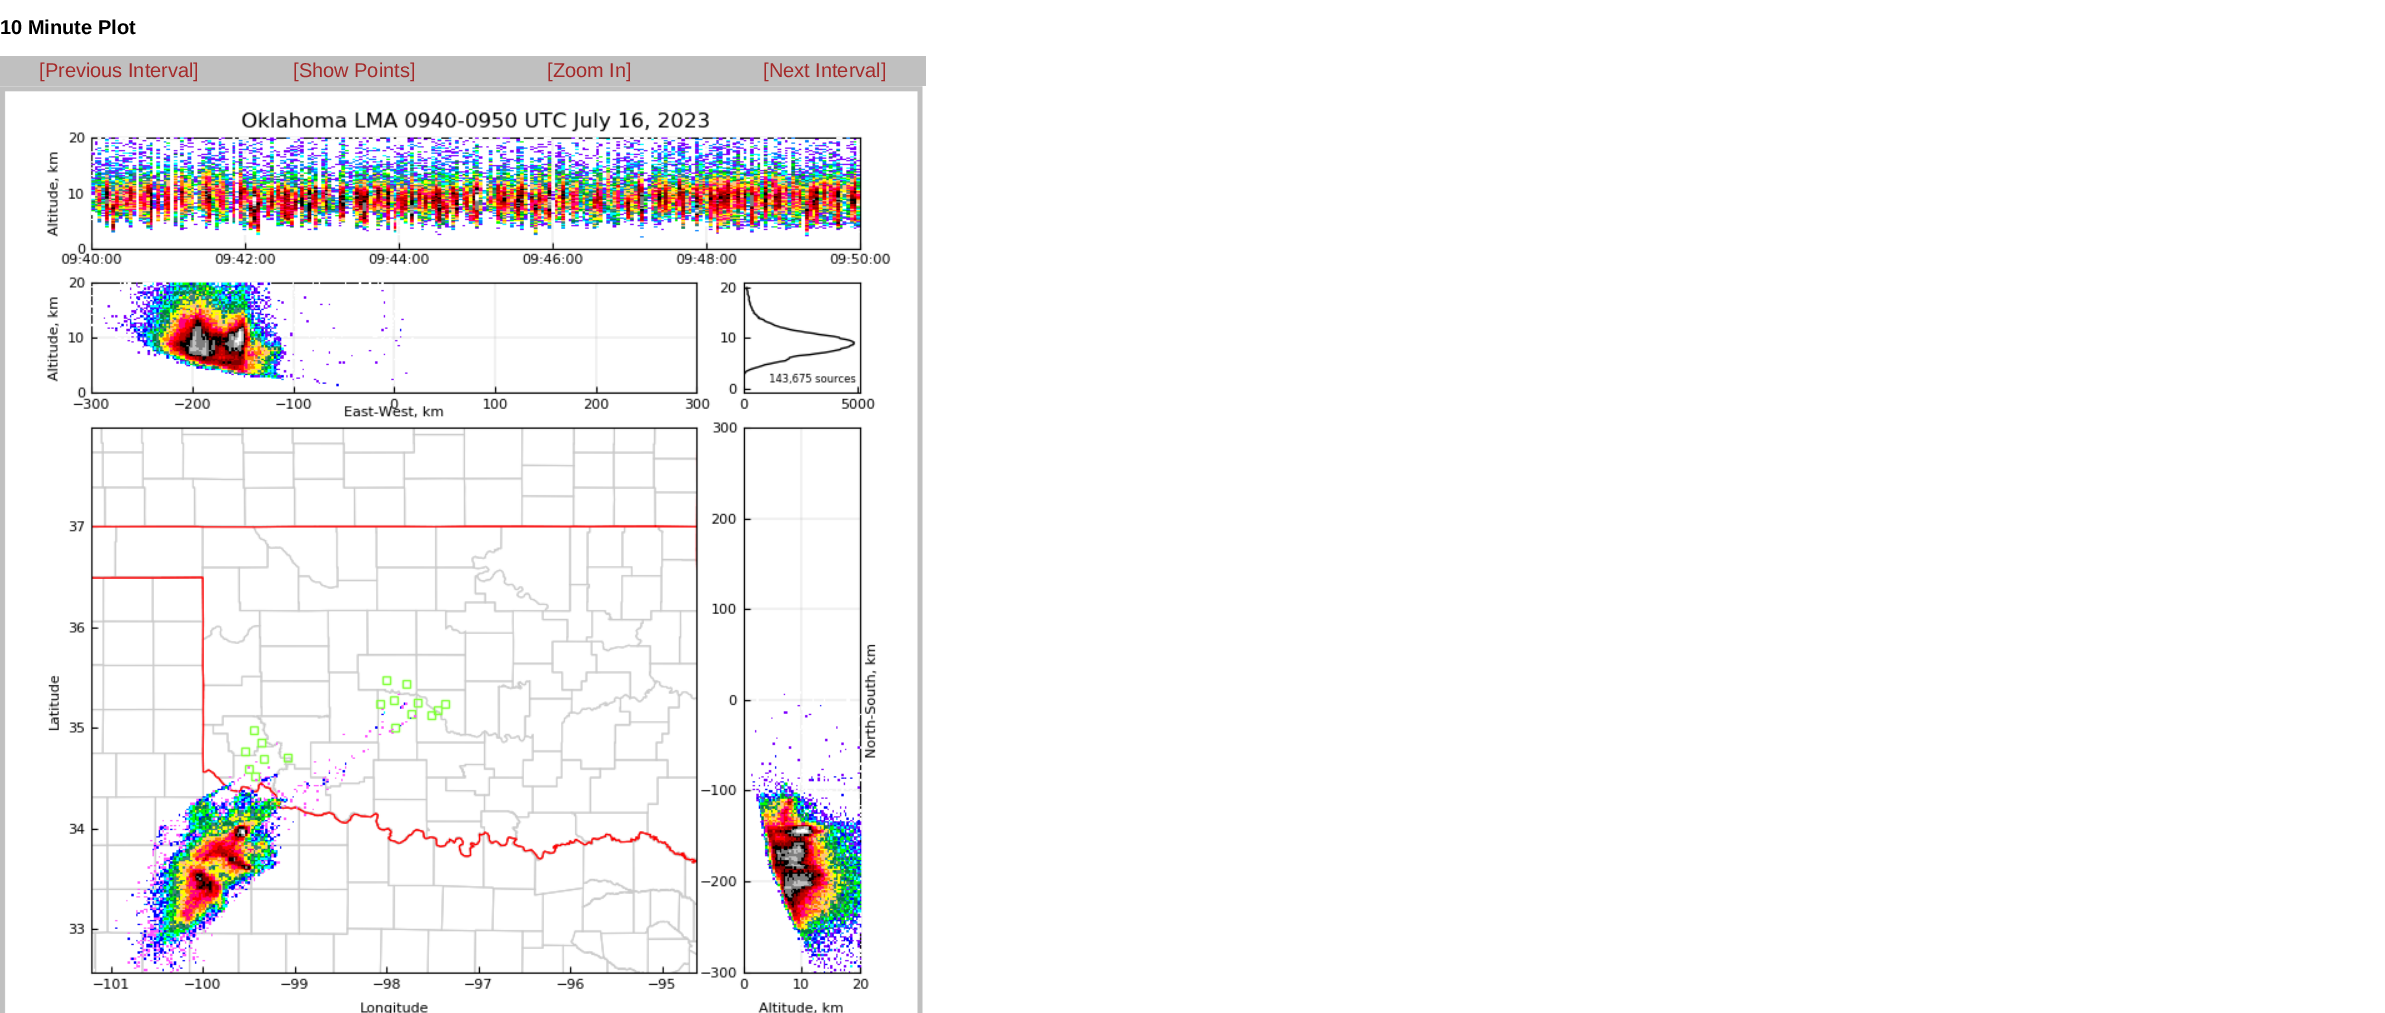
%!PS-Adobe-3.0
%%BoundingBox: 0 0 2385 1013
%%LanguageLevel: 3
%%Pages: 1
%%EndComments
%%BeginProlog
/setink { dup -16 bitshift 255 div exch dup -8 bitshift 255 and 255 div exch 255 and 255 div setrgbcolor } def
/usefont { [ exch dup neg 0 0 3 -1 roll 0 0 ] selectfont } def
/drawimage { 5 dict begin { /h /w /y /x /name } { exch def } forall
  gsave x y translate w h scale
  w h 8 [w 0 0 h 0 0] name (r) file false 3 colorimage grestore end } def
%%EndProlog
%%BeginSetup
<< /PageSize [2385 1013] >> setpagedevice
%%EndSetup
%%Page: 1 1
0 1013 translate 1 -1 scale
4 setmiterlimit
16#FFFFFF setink
0 0 2385 1013 rectfill
/LiberationSans-Bold 20 usefont
16#000000 setink
0 34 moveto (10 Minute Plot) show
16#C0C0C0 setink
0 56 926 30 rectfill
/LiberationSans-Regular 20 usefont
16#A52A2A setink
[
    [([Previous Interval]) 39 77]
    [([Show Points]) 293 77]
    [([Zoom In]) 547 77]
    [([Next Interval]) 763 77]
] { aload pop moveto show } forall
(img1.raw) 0 86 923 927 drawimage
showpage
%%EOF
